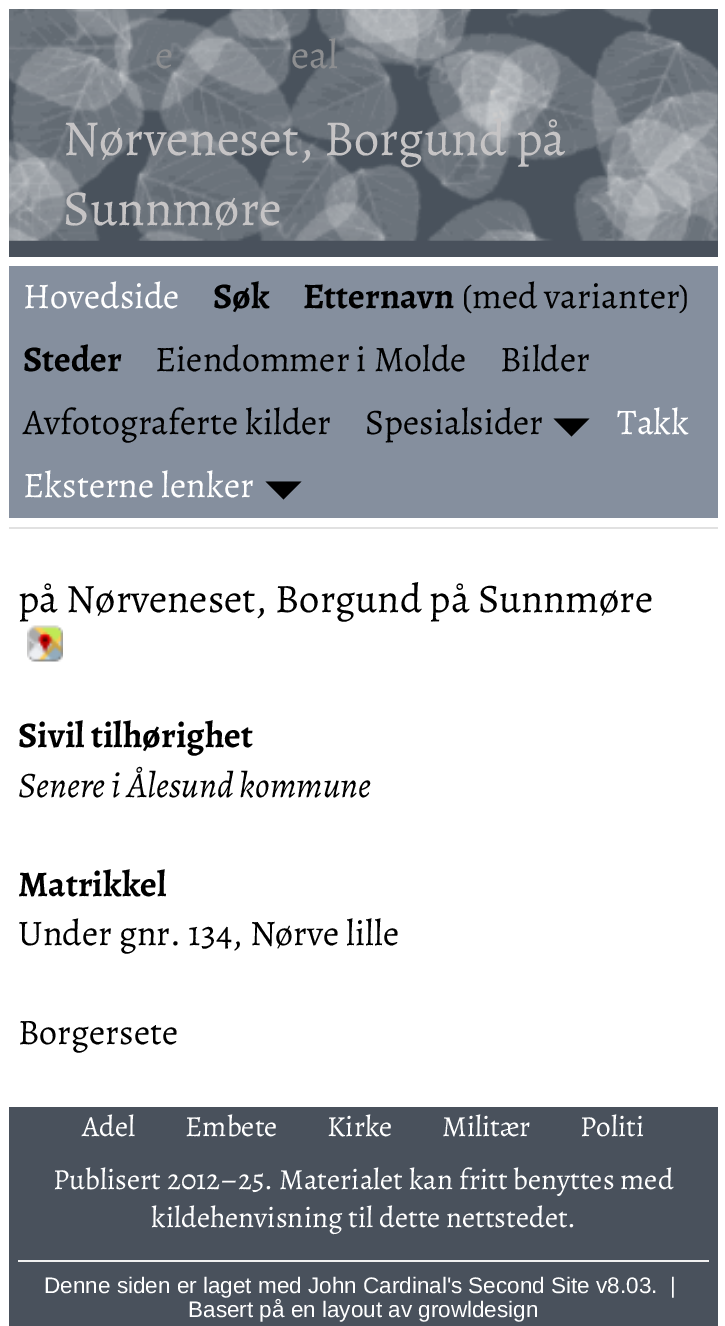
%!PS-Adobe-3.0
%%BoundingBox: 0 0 725 1326
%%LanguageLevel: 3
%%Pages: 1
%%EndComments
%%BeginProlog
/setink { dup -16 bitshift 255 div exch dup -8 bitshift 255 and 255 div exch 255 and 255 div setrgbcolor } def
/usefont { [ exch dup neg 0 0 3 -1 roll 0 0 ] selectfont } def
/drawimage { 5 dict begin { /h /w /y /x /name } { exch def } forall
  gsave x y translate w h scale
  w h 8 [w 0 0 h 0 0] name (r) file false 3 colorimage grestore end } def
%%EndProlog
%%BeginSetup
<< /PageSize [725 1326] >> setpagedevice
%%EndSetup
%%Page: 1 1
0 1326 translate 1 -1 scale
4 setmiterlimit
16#FFFFFF setink
0 0 725 1326 rectfill
16#49515C setink
9 9 709 248 rectfill
(img1.raw) 9 9 709 232 drawimage
/Alegreya-Regular 40.5 usefont
16#8D8E90 setink
155 68 moveto (e) show
291 68 moveto (eal) show
/Alegreya-Regular 50.5 usefont
16#C6C4C5 setink
63 155 moveto (Nørveneset, Borgund på) show
63 225 moveto (Sunnmøre) show
16#858F9E setink
9 266 709 252 rectfill
/Alegreya-Regular 36 usefont
16#FFFFFF setink
23 308 moveto (Hovedside) show
/Alegreya-Bold 36 usefont
16#000000 setink
213 308 moveto (Søk) show
303 308 moveto (Etternavn) show
/Alegreya-Regular 36 usefont
462 308 moveto (\(med varianter\)) show
/Alegreya-Bold 36 usefont
23 371 moveto (Steder) show
/Alegreya-Regular 36 usefont
[
    [(Eiendommer i Molde) 155 371]
    [(Bilder) 500 371]
    [(Avfotograferte kilder) 23 434]
    [(Spesialsider) 365 434]
] { aload pop moveto show } forall
553.5 418.5 moveto 589.5 418.5 lineto 571.5 436.5 lineto closepath fill
16#FFFFFF setink
617 434 moveto (Takk) show
23 497 moveto (Eksterne lenker) show
16#000000 setink
265.5 481.5 moveto 301.5 481.5 lineto 283.5 499.5 lineto closepath fill
16#E1E1E1 setink
9 527 709 2 rectfill
/Alegreya-Regular 40.5 usefont
16#000000 setink
18 612 moveto (på Nørveneset, Borgund på Sunnmøre) show
(img2.raw) 27 625 36 37 drawimage
/Alegreya-Bold 36 usefont
18 747 moveto (Sivil tilhørighet) show
/Alegreya-Italic 36 usefont
18 797 moveto (Senere i Ålesund kommune) show
/Alegreya-Bold 36 usefont
18 896 moveto (Matrikkel) show
/Alegreya-Regular 36 usefont
18 945 moveto (Under gnr. 134, Nørve lille) show
18 1044 moveto (Borgersete) show
16#49515C setink
9 1107 709 219 rectfill
/Alegreya-Regular 29.25 usefont
16#FFFFFF setink
[
    [(Adel) 82 1136]
    [(Embete) 185 1136]
    [(Kirke) 327 1136]
    [(Militær) 442 1136]
    [(Politi) 580 1136]
    [(Publisert 2012–25. Materialet kan fritt benyttes med) 53 1189]
    [(kildehenvisning til dette nettstedet.) 151 1227]
] { aload pop moveto show } forall
16#F1F1F1 setink
18 1260 691 2 rectfill
/LiberationSans-Regular 22.5 usefont
16#FFFFFF setink
44 1293 moveto (Denne siden er laget med John Cardinal's Second Site v8.03.  |) show
188 1317 moveto (Basert på en layout av growldesign) show
showpage
%%EOF
